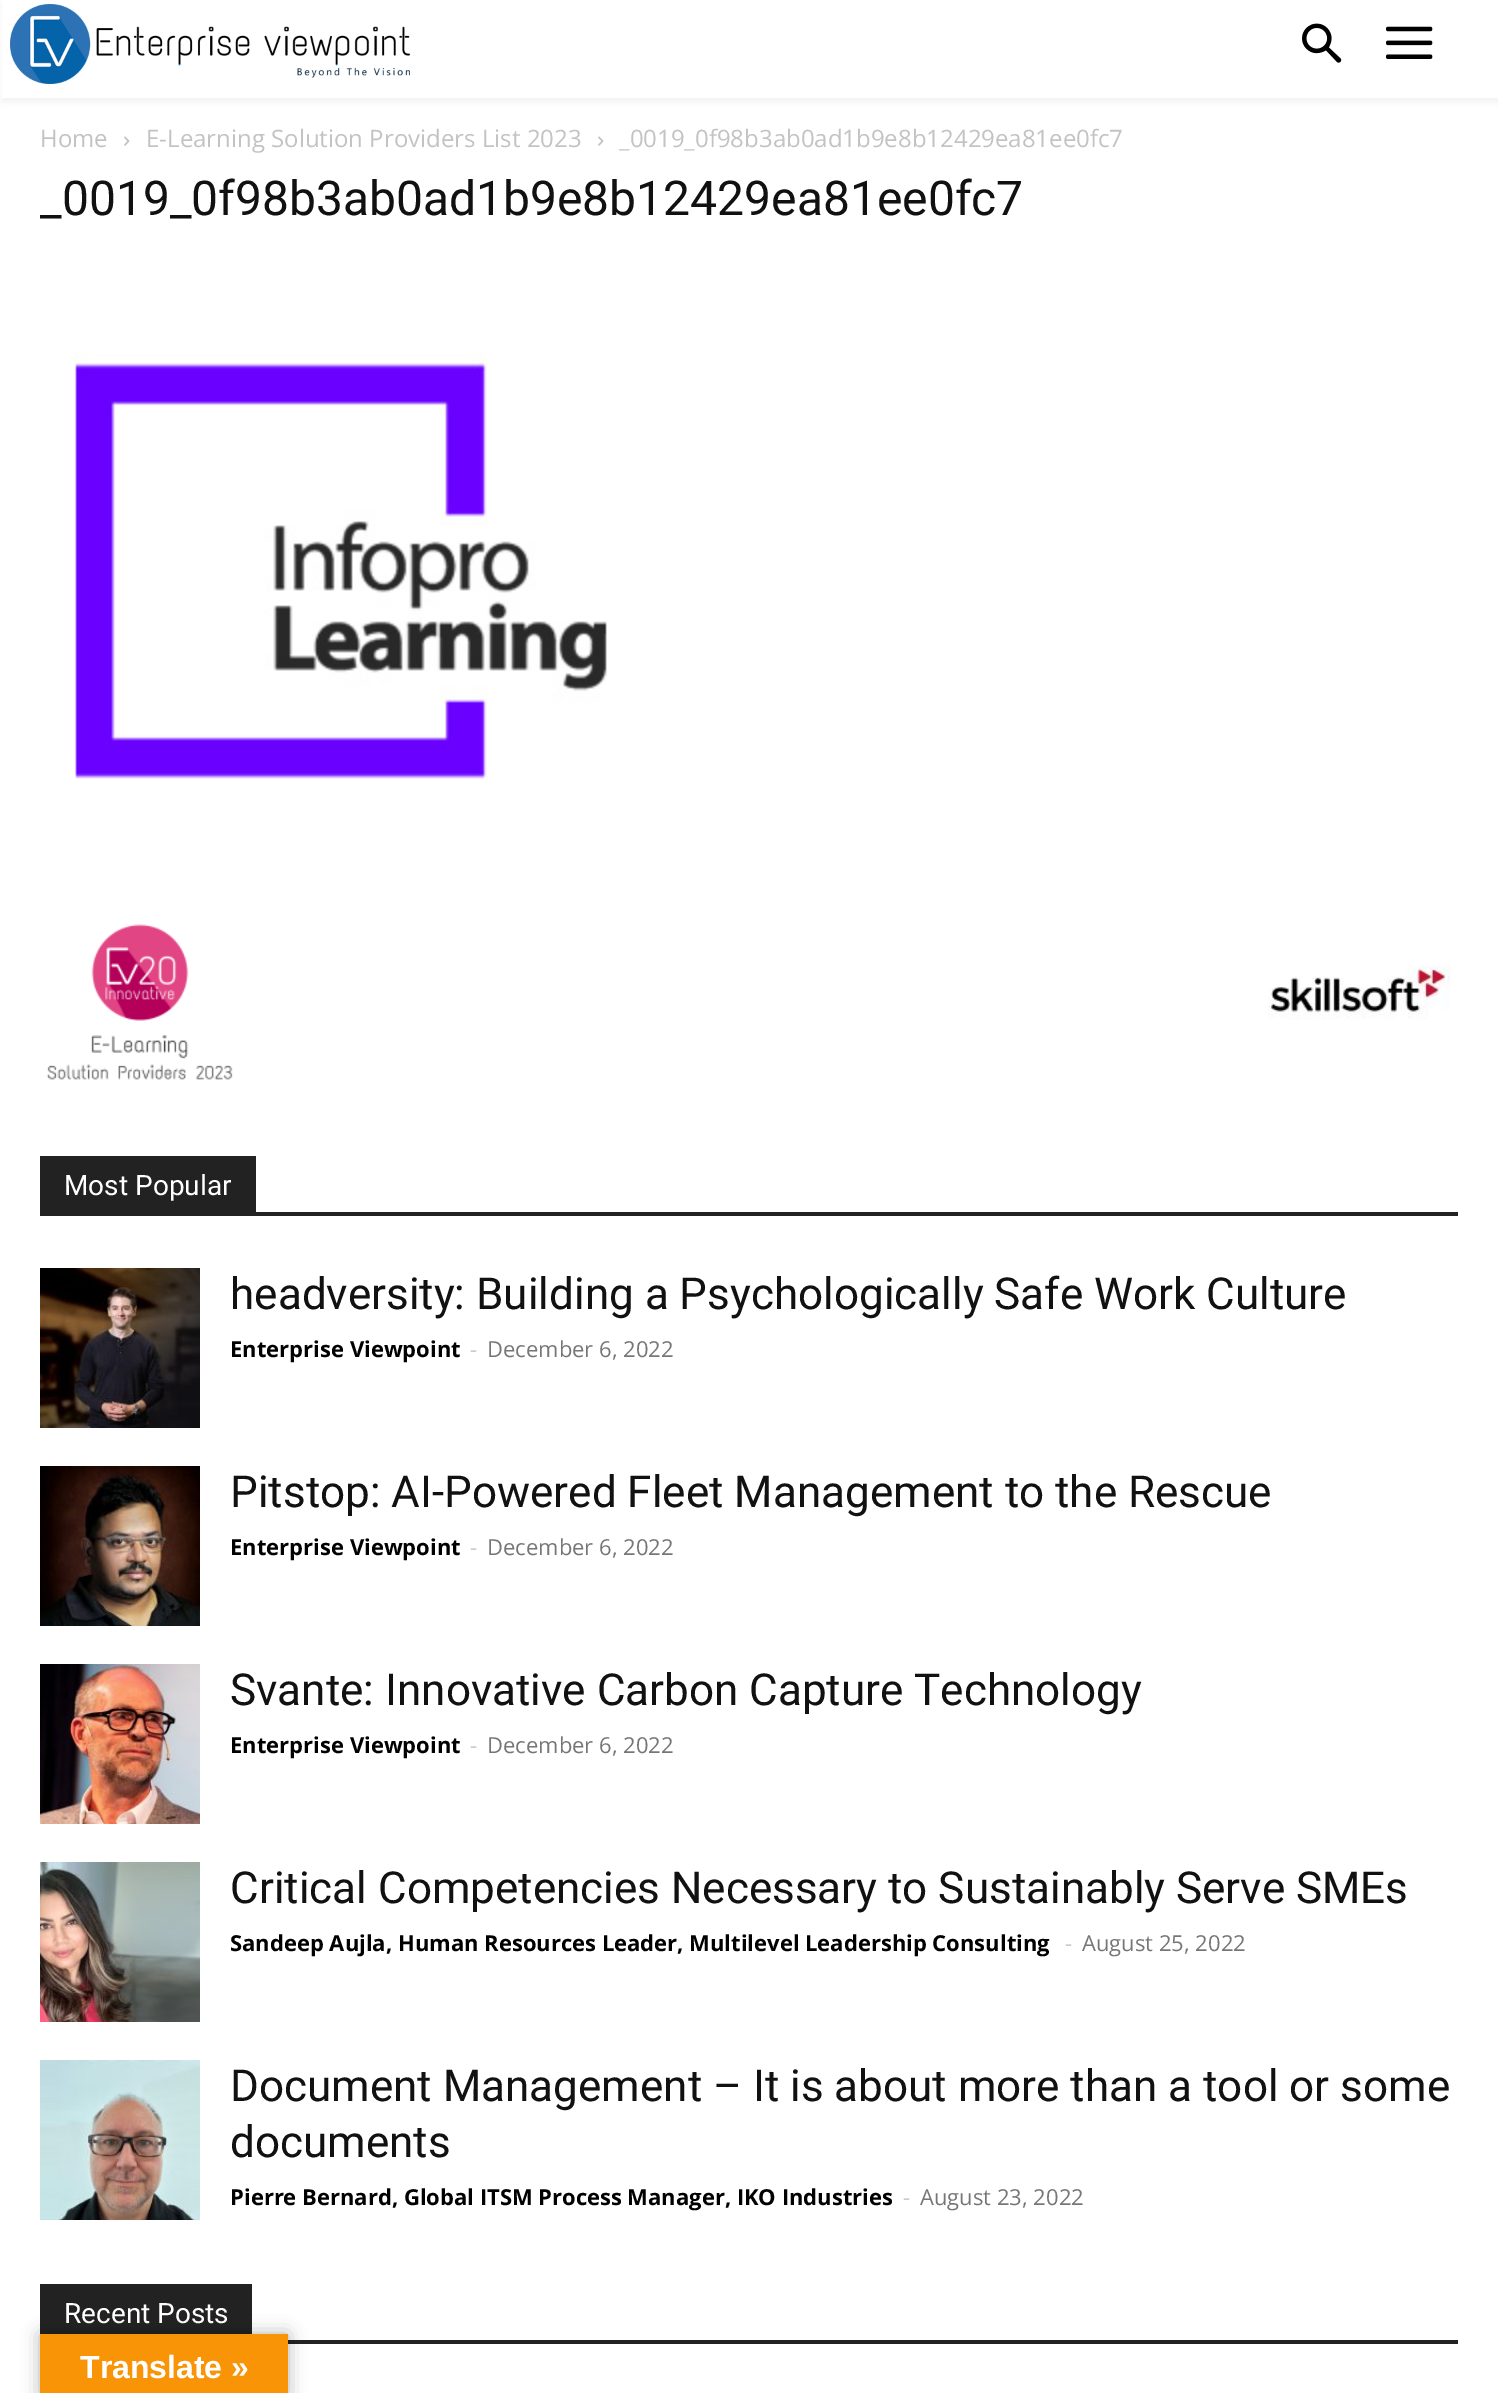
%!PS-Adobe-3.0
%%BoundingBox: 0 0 1498 2393
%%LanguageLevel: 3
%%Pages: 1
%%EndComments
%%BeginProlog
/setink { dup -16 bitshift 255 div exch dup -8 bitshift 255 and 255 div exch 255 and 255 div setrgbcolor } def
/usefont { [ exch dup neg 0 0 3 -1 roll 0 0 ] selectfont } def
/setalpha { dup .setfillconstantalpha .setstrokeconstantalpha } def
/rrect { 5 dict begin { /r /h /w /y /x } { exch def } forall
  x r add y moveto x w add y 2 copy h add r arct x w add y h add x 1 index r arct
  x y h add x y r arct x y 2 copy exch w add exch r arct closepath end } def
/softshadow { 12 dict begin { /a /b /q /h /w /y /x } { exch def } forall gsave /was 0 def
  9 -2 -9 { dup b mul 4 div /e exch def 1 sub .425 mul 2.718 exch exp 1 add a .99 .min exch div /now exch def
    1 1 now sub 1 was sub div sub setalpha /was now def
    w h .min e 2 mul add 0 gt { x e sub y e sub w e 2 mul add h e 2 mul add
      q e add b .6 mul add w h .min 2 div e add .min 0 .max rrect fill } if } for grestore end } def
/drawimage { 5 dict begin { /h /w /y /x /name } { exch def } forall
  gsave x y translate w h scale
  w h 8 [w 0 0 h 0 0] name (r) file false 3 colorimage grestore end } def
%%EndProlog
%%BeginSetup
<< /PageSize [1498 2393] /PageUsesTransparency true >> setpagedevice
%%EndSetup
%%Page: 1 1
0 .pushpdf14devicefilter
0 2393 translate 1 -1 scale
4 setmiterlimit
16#FFFFFF setink
0 0 1498 2393 rectfill
(img1.raw) 10 4 400 80 drawimage
(img2.raw) 1302 23 40 40 drawimage
(img3.raw) 1386 26 47 33 drawimage
gsave
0 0 moveto 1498 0 lineto 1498 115 lineto 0 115 lineto closepath 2 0 moveto 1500 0 lineto 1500 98 lineto 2 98 lineto closepath eoclip newpath
16#000000 setink
2 4 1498 98 0 4 0.06 softshadow
grestore
/OpenSans-Regular 24 usefont
16#C3C3C3 setink
40 147 moveto (Home) show
(img4.raw) 124 136 6 10 drawimage
146 147 moveto (E-Learning Solution Providers List 2023) show
(img4.raw) 598 136 6 10 drawimage
619 147 moveto (_0019_0f98b3ab0ad1b9e8b12429ea81ee0fc7) show
/Roboto-Regular 48 usefont
16#111111 setink
40 215 moveto (_0019_0f98b3ab0ad1b9e8b12429ea81ee0fc7) show
(img5.raw) 75 352 532 427 drawimage
(img6.raw) 46 924 187 156 drawimage
(img7.raw) 1268 965 183 55 drawimage
16#222222 setink
40 1212 1418 4 rectfill
40 1156 216 56 rectfill
/Roboto-Regular 28 usefont
16#FFFFFF setink
64 1195 moveto (Most Popular) show
(img8.raw) 40 1268 160 160 drawimage
/Roboto-Regular 44 usefont
16#111111 setink
230 1309 moveto (headversity: Building a Psychologically Safe Work Culture) show
/OpenSans-Bold 22 usefont
16#000000 setink
230 1357 moveto (Enterprise Viewpoint) show
/OpenSans-Regular 22 usefont
16#CCCCCC setink
470 1357 moveto (-) show
16#767676 setink
487 1357 moveto (December 6, 2022) show
(img9.raw) 40 1466 160 160 drawimage
/Roboto-Regular 44 usefont
16#111111 setink
230 1507 moveto (Pitstop: AI-Powered Fleet Management to the Rescue) show
/OpenSans-Bold 22 usefont
16#000000 setink
230 1555 moveto (Enterprise Viewpoint) show
/OpenSans-Regular 22 usefont
16#CCCCCC setink
470 1555 moveto (-) show
16#767676 setink
487 1555 moveto (December 6, 2022) show
(img10.raw) 40 1664 160 160 drawimage
/Roboto-Regular 44 usefont
16#111111 setink
230 1705 moveto (Svante: Innovative Carbon Capture Technology) show
/OpenSans-Bold 22 usefont
16#000000 setink
230 1753 moveto (Enterprise Viewpoint) show
/OpenSans-Regular 22 usefont
16#CCCCCC setink
470 1753 moveto (-) show
16#767676 setink
487 1753 moveto (December 6, 2022) show
(img11.raw) 40 1862 160 160 drawimage
/Roboto-Regular 44 usefont
16#111111 setink
230 1903 moveto (Critical Competencies Necessary to Sustainably Serve SMEs) show
/OpenSans-Bold 22 usefont
16#000000 setink
230 1951 moveto (Sandeep Aujla, Human Resources Leader, Multilevel Leadership Consulting) show
/OpenSans-Regular 22 usefont
16#CCCCCC setink
1065 1951 moveto (-) show
16#767676 setink
1082 1951 moveto (August 25, 2022) show
(img12.raw) 40 2060 160 160 drawimage
/Roboto-Regular 44 usefont
16#111111 setink
230 2101 moveto (Document Management – It is about more than a tool or some) show
230 2157 moveto (documents) show
/OpenSans-Bold 22 usefont
16#000000 setink
230 2205 moveto (Pierre Bernard, Global ITSM Process Manager, IKO Industries) show
/OpenSans-Regular 22 usefont
16#CCCCCC setink
903 2205 moveto (-) show
16#767676 setink
920 2205 moveto (August 23, 2022) show
16#222222 setink
288 2340 1170 4 rectfill
40 2284 212 50 rectfill
/Roboto-Regular 28 usefont
16#FFFFFF setink
64 2323 moveto (Recent Posts) show
16#000000 setink
40 2334 248 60 0 9 0.3 softshadow
16#F89406 setink
40 2334 248 59 rectfill
/LiberationSans-Bold 32 usefont
16#FFFFFF setink
80 2378 moveto (Translate ») show
.poppdf14devicefilter showpage
%%EOF
